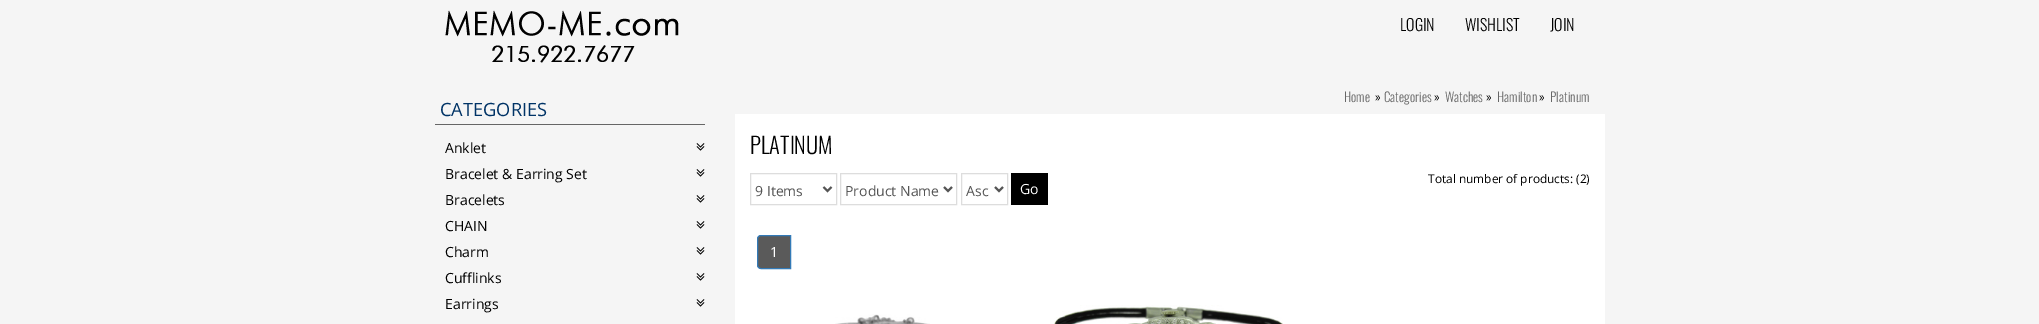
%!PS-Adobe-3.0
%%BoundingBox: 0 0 2039 324
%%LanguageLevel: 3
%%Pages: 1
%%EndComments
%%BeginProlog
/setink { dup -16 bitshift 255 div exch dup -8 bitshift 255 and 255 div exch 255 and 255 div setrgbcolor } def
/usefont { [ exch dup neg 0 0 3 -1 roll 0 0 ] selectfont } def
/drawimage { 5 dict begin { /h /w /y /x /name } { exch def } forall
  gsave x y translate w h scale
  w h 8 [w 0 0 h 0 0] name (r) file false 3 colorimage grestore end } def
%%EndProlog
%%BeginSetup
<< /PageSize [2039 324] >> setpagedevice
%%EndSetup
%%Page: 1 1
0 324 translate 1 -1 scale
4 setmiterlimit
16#F5F5F5 setink
0 0 2039 324 rectfill
(img1.raw) 445 10 234 53 drawimage
/Oswald-Light 16 usefont
16#000000 setink
[
    [(LOGIN) 1400 31]
    [(WISHLIST) 1465 31]
    [(JOIN) 1550 31]
] { aload pop moveto show } forall
16#666666 setink
435 124 270 1 rectfill
/OpenSans-Regular 18.25 usefont
16#003366 setink
440 116 moveto (CATEGORIES) show
/OpenSans-Regular 14 usefont
16#000000 setink
445 153 moveto (Anklet) show
(img2.raw) 696 143 9 8 drawimage
445 179 moveto (Bracelet & Earring Set) show
(img2.raw) 696 169 9 8 drawimage
445 205 moveto (Bracelets) show
(img2.raw) 696 195 9 8 drawimage
445 231 moveto (CHAIN) show
(img2.raw) 696 221 9 8 drawimage
445 257 moveto (Charm) show
(img2.raw) 696 247 9 8 drawimage
445 283 moveto (Cufflinks) show
(img2.raw) 696 273 9 8 drawimage
445 309 moveto (Earrings) show
(img2.raw) 696 299 9 8 drawimage
/Oswald-Light 13 usefont
16#666666 setink
1344 102 moveto (Home) show
16#000000 setink
1375 102 moveto (») show
16#666666 setink
1384 102 moveto (Categories) show
16#000000 setink
1434 102 moveto (») show
16#666666 setink
1445 102 moveto (Watches) show
16#000000 setink
1486 102 moveto (») show
16#666666 setink
1497 102 moveto (Hamilton) show
16#000000 setink
1539 102 moveto (») show
16#666666 setink
1550 102 moveto (Platinum) show
16#FFFFFF setink
735 114 870 210 rectfill
/Oswald-Light 22.5 usefont
16#000000 setink
750 154 moveto (PLATINUM) show
/OpenSans-Regular 11.9 usefont
1428 183 moveto (Total number of products: \(2\)) show
16#DDDDDD setink
750.5 173.5 86 31 rectstroke
16#555555 setink
2 setlinewidth
823.5 187 moveto 827.5 191 lineto 831.5 187 lineto stroke
/OpenSans-Regular 14 usefont
755 196 moveto (9 Items) show
16#DDDDDD setink
1 setlinewidth
840.5 173.5 116 31 rectstroke
16#555555 setink
2 setlinewidth
944 187 moveto 948 191 lineto 952 187 lineto stroke
845 196 moveto (Product Name) show
16#DDDDDD setink
1 setlinewidth
961.5 173.5 46 31 rectstroke
16#555555 setink
2 setlinewidth
995 187 moveto 999 191 lineto 1003 187 lineto stroke
966 196 moveto (Asc) show
16#000000 setink
1011 173 37 32 rectfill
16#FFFFFF setink
1020 194 moveto (Go) show
16#5A5A5A setink
761 235.5 moveto 790.5 235.5 lineto 790.5 268.5 lineto 761 268.5 lineto 759 268.5 757.5 267 757.5 265 curveto 757.5 239 lineto 757.5 237 759 235.5 761 235.5 curveto closepath gsave fill grestore
16#337AB7 setink
1 setlinewidth
stroke
16#FFFFFF setink
770 257 moveto (1) show
(img3.raw) 835 314 95 10 drawimage
(img4.raw) 1054 305 229 19 drawimage
showpage
%%EOF
